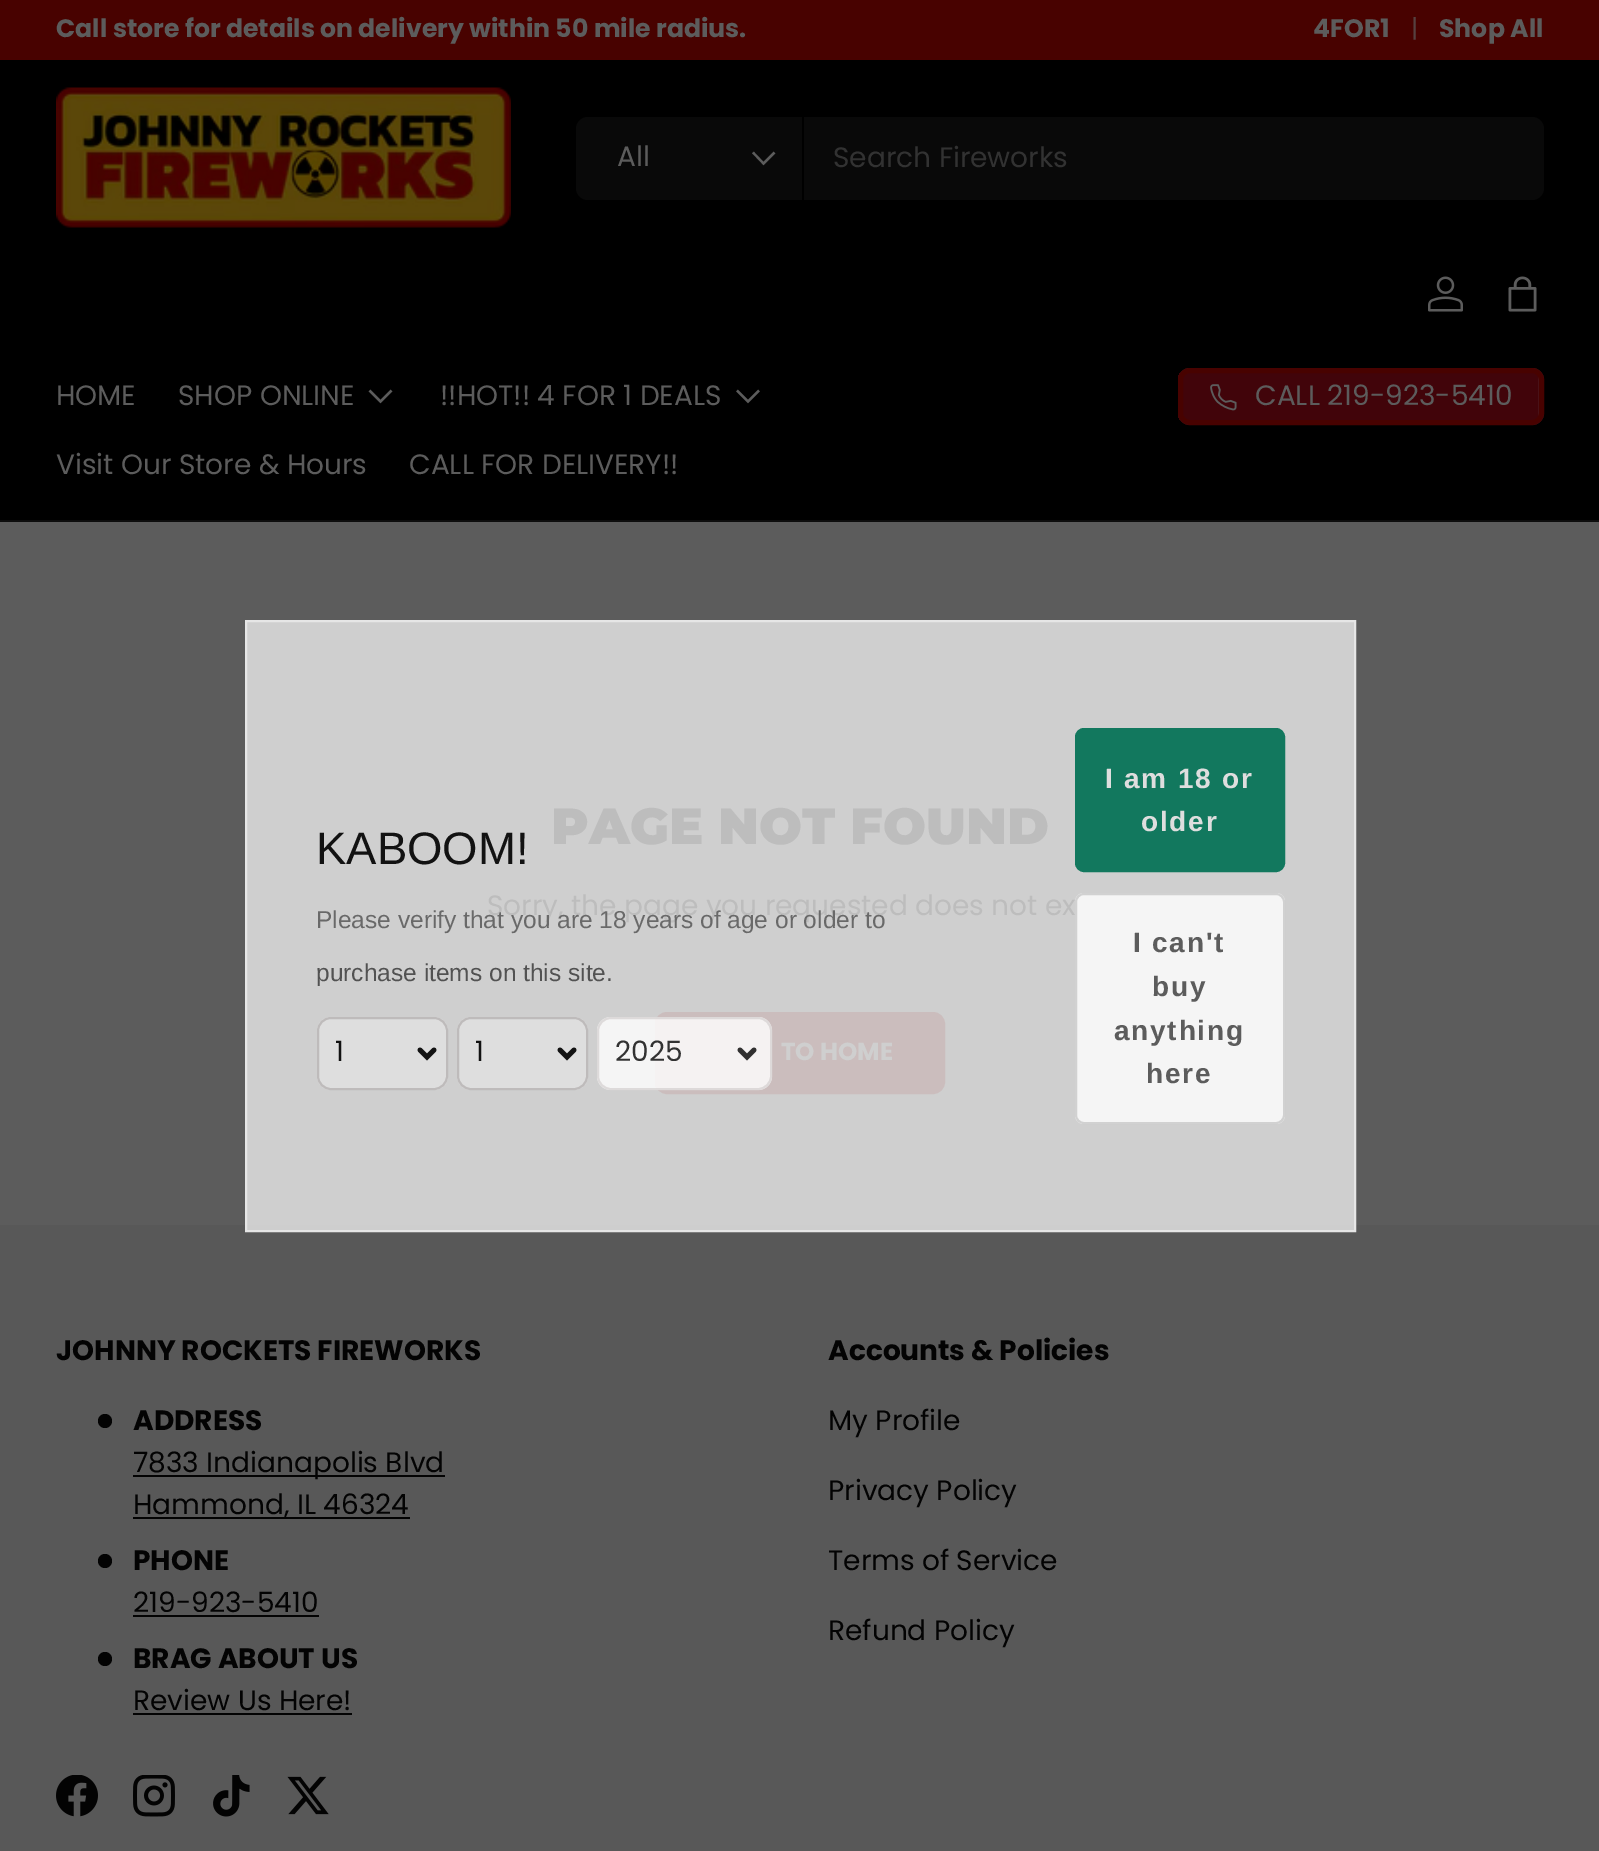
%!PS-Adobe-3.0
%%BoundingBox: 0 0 1599 1851
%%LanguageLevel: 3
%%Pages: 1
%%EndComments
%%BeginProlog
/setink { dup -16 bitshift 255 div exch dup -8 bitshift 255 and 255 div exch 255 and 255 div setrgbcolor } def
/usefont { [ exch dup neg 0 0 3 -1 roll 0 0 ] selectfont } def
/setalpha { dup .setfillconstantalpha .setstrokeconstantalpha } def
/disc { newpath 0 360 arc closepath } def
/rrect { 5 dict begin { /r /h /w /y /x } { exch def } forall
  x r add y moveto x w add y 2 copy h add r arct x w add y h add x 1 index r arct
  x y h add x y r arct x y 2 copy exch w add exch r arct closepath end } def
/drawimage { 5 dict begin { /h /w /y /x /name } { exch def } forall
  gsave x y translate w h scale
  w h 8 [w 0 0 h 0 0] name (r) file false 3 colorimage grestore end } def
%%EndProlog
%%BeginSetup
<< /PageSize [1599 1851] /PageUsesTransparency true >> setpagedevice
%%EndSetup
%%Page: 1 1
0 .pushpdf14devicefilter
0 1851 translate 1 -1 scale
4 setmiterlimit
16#5C5C5C setink
0 0 1599 1851 rectfill
16#CFCFCF setink
247 622 1107 603 rectfill
16#480200 setink
0 0 1599 60 rectfill
/Poppins-Bold 25.2 usefont
16#5C5C5C setink
56 37 moveto (Call store for details on delivery within 50 mile radius.) show
1313 37 moveto (4FOR1) show
/Poppins-Regular 25.2 usefont
16#564140 setink
1411 37 moveto (|) show
/Poppins-Bold 25.2 usefont
16#5C5C5C setink
1439 37 moveto (Shop All) show
16#000000 setink
0 60 1599 460 rectfill
16#0E0E0E setink
0 520 1599 2 rectfill
(img1.raw) 56 87 455 141 drawimage
16#090909 setink
576 117 968 83 12 rrect fill
16#000000 setink
802 117 2 83 rectfill
/Poppins-Regular 28 usefont
16#5C5C5C setink
617 166 moveto (All) show
2.2 setlinewidth
774.5 152.5 moveto 763.5 163.5 lineto 753 152.5 lineto stroke
16#323232 setink
833 167 moveto (Search Fireworks) show
(img2.raw) 1428 276 35 36 drawimage
(img3.raw) 1508 276 29 36 drawimage
16#5C5C5C setink
56 405 moveto (HOME) show
178 405 moveto (SHOP ONLINE) show
391.5 390.5 moveto 380.5 401.5 lineto 369.5 390.5 lineto stroke
440 405 moveto (!!HOT!! 4 FOR 1 DEALS) show
759 390.5 moveto 748 401.5 lineto 737 390.5 lineto stroke
56 474 moveto (Visit Our Store & Hours) show
409 474 moveto (CALL FOR DELIVERY!!) show
16#491218 setink
1178 368 366 57 12 rrect fill
gsave
1178 368 366 57 12 rrect clip newpath
gsave 1178 373 moveto 1538 373 lineto 1538 420 lineto 1178 420 lineto closepath clip newpath
<< /ShadingType 2 /ColorSpace /DeviceRGB /Coords [498 270 1513 523] /Extend [true true] /Function << /FunctionType 3 /Domain [0 1] /Functions [<< /FunctionType 2 /Domain [0 1] /C0 [0.286 0.071 0.094] /C1 [0.286 0.071 0.094] /N 1 >> << /FunctionType 2 /Domain [0 1] /C0 [0.255 0.016 0.039] /C1 [0.255 0.016 0.039] /N 1 >>] /Bounds [0.6] /Encode [0 1 0 1] >> >> shfill grestore
grestore
16#480200 setink
5 setlinewidth
1180.5 370.5 361 52 9.5 rrect stroke
(img4.raw) 1210 384 27 27 drawimage
16#5C5C5C setink
1255 405 moveto (CALL 219-923-5410) show
gsave
655 1012 290 82 12 rrect clip newpath
gsave 655 1017 moveto 940 1017 lineto 940 1089 lineto 655 1089 lineto closepath clip newpath
<< /ShadingType 2 /ColorSpace /DeviceRGB /Coords [116 952 924 1153] /Extend [true true] /Function << /FunctionType 3 /Domain [0 1] /Functions [<< /FunctionType 2 /Domain [0 1] /C0 [0.8 0.753 0.753] /C1 [0.8 0.753 0.753] /N 1 >> << /FunctionType 2 /Domain [0 1] /C0 [0.796 0.741 0.741] /C1 [0.796 0.741 0.741] /N 1 >>] /Bounds [0.6] /Encode [0 1 0 1] >> >> shfill grestore
grestore
16#CBBDBD setink
657.5 1014.5 285 77 9.5 rrect stroke
16#585858 setink
0 1225 1599 626 rectfill
16#CECECE setink
245 1225 1111 5 rectfill
16#E6E6E6 setink
2 setlinewidth
246 621 1109 610 rectstroke
/LiberationSans-Regular 45.5 usefont
16#121212 setink
316 864 moveto (KABOOM!) show
/Poppins-Regular 28 usefont
16#BDBDBD setink
487 915 moveto (Sorry, the page you requested does not ex) show
/LiberationSans-Regular 24.5 usefont
16#696969 setink
316 928 moveto (Please verify that you are 18 years of age or older to) show
16#525252 setink
316 981 moveto (purchase items on this site.) show
16#DEDEDE setink
317 1017 131 73 14 rrect fill
16#121212 setink
4.7 setlinewidth
1 setlinecap
420 1050 moveto 427 1057 lineto 434 1050 lineto stroke
16#BEBBBB setink
2 setlinewidth
0 setlinecap
318 1018 129 71 13 rrect stroke
/Poppins-Regular 28 usefont
16#121212 setink
335 1061 moveto (1) show
16#DEDEDE setink
457 1017 131 73 14 rrect fill
16#121212 setink
4.7 setlinewidth
1 setlinecap
560 1050 moveto 567 1057 lineto 574 1050 lineto stroke
16#BEBBBB setink
2 setlinewidth
0 setlinecap
458 1018 129 71 13 rrect stroke
16#121212 setink
475 1061 moveto (1) show
0.8 setalpha
16#FFFFFF setink
597 1017 175 73 14 rrect fill
16#000000 setink
4.7 setlinewidth
1 setlinecap
740 1050 moveto 747 1057 lineto 754 1050 lineto stroke
16#D7D3D3 setink
2 setlinewidth
0 setlinecap
598 1018 173 71 13 rrect stroke
1 setalpha
16#323232 setink
615 1061 moveto (2025) show
16#12785E setink
1076 729 208 142 8 rrect gsave fill grestore
stroke
/LiberationSans-Bold 28 usefont
16#DEDEDE setink
1105 788 moveto 1.75 0 (I am 18 or) ashow
1141 831 moveto 1.75 0 (older) ashow
0.8 setalpha
16#FFFFFF setink
1075 893 210 231 9 rrect fill
16#C8C8C8 setink
1076 894 208 229 8 rrect stroke
1 setalpha
16#5C5C5C setink
1133 952 moveto 1.75 0 (I can't) ashow
1152 996 moveto 1.75 0 (buy) ashow
1114 1040 moveto 1.75 0 (anything) ashow
1146 1083 moveto 1.75 0 (here) ashow
/Montserrat-Black 50.75 usefont
16#BDBDBD setink
551 844 moveto (PAGE NOT FOUND) show
/Poppins-Bold 24.5 usefont
16#CFCFCF setink
781 1060 moveto (TO HOME) show
/Poppins-Bold 28 usefont
16#030303 setink
56 1360 moveto (JOHNNY ROCKETS FIREWORKS) show
105 1421 7 disc fill
133 1430 moveto (ADDRESS) show
133 1475 312 2 rectfill
/Poppins-Regular 28 usefont
133 1472 moveto (7833 Indianapolis Blvd) show
133 1517 277 2 rectfill
133 1514 moveto (Hammond, IL 46324) show
105 1561 7 disc fill
/Poppins-Bold 28 usefont
133 1570 moveto (PHONE) show
/Poppins-Regular 28 usefont
133 1612 moveto (219-923-5410) show
133 1615 186 2 rectfill
105 1659 7 disc fill
/Poppins-Bold 28 usefont
133 1668 moveto (BRAG ABOUT US) show
/Poppins-Regular 28 usefont
133 1710 moveto (Review Us Here!) show
133 1713 219 2 rectfill
(img5.raw) 56 1775 42 42 drawimage
(img6.raw) 133 1775 42 42 drawimage
(img7.raw) 213 1775 37 42 drawimage
(img8.raw) 287 1776 42 39 drawimage
/Poppins-Bold 28 usefont
828 1360 moveto (Accounts & Policies) show
/Poppins-Regular 28 usefont
[
    [(My Profile) 828 1430]
    [(Privacy Policy) 828 1500]
    [(Terms of Service) 828 1570]
    [(Refund Policy) 828 1640]
] { aload pop moveto show } forall
.poppdf14devicefilter showpage
%%EOF
